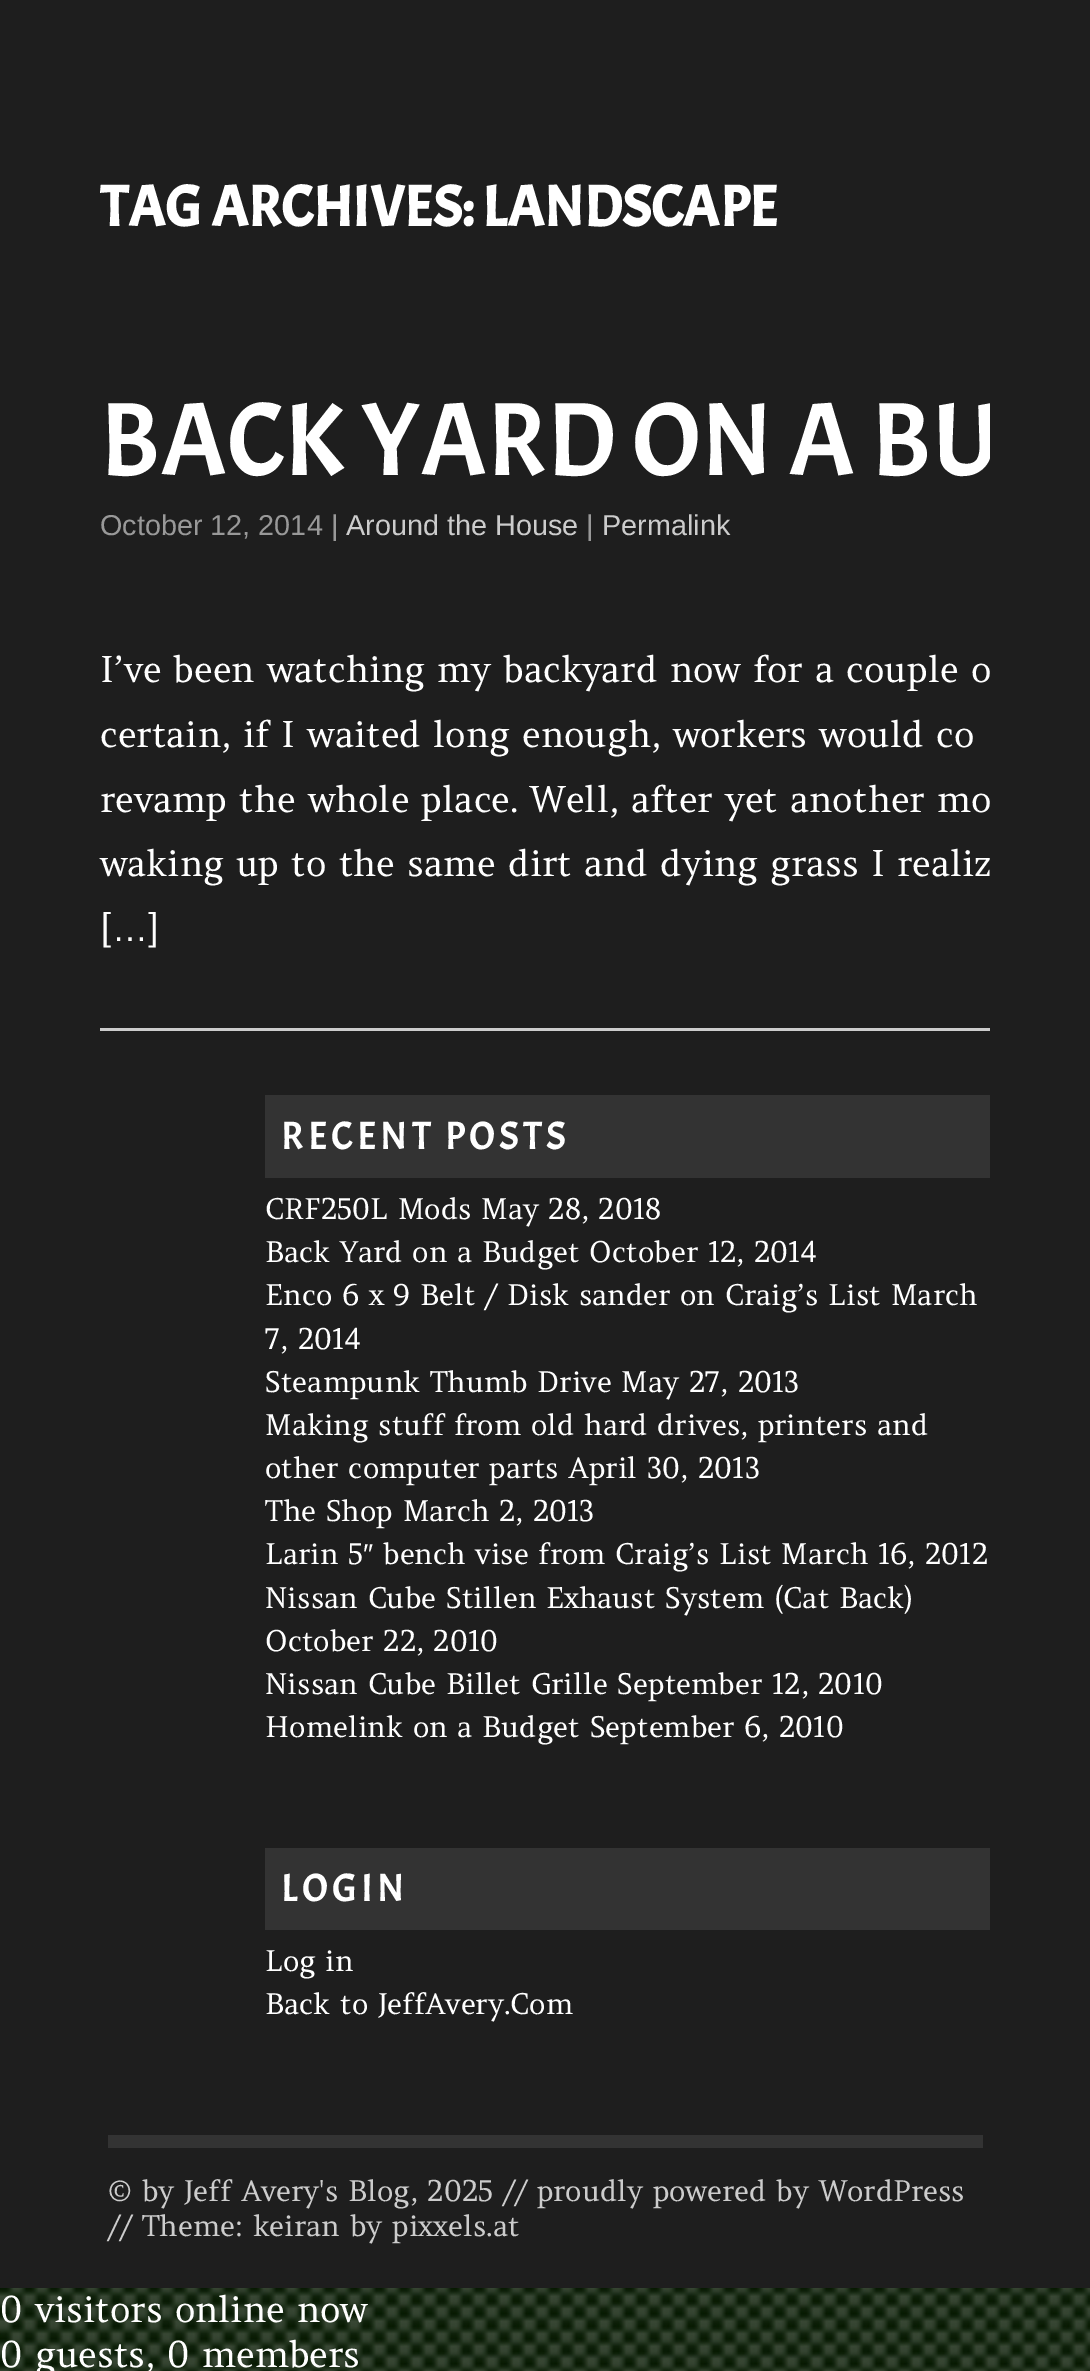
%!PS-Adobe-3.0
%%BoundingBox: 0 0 1090 2371
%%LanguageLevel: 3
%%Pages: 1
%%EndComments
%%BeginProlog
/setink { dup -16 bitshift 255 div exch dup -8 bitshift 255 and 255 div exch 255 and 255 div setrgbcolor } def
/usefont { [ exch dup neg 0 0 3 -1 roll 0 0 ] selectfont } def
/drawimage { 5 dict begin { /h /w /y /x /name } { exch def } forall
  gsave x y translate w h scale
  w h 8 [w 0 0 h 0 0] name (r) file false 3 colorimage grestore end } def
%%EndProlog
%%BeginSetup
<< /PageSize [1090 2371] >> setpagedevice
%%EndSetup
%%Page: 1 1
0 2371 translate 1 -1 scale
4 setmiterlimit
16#FFFFFF setink
0 0 1090 2371 rectfill
(img1.raw) 0 2288 1090 83 drawimage
16#1E1E1E setink
0 0 1090 2288 rectfill
/Acme-Bold 57.6 usefont
16#FFFFFF setink
100 226 moveto (TAG ARCHIVES: LANDSCAPE) show
gsave
100 350 890 720 rectclip
/Acme-Regular 104 usefont
100 475 moveto (BACK YARD ON A BU) show
grestore
/LiberationSans-Regular 28.8 usefont
16#999999 setink
100 535 moveto (October 12, 2014 |) show
16#CCCCCC setink
346 535 moveto (Around the House) show
16#999999 setink
586 535 moveto (|) show
16#CCCCCC setink
602 535 moveto (Permalink) show
100 1028 890 3 rectfill
/Amethysta-Regular 36 usefont
16#FFFFFF setink
[
    [(I’ve been watching my backyard now for a couple o) 100 682]
    [(certain, if I waited long enough, workers would co) 100 747]
    [(revamp the whole place. Well, after yet another mo) 100 812]
    [(waking up to the same dirt and dying grass I realiz) 100 876]
    [([) 100 941]
] { aload pop moveto show } forall
/LiberationSans-Regular 36 usefont
112 941 moveto (…) show
/Amethysta-Regular 36 usefont
148 941 moveto (]) show
16#333333 setink
265 1095 725 83 rectfill
/Acme-Regular 39.5 usefont
16#FFFFFF setink
281 1149 moveto 4 0 (RECENT POSTS) ashow
/Amethysta-Regular 28.8 usefont
[
    [(CRF250L Mods May 28, 2018) 265 1219]
    [(Back Yard on a Budget October 12, 2014) 265 1262]
    [(Enco 6 x 9 Belt / Disk sander on Craig’s List March) 265 1305]
    [(7, 2014) 265 1349]
    [(Steampunk Thumb Drive May 27, 2013) 265 1392]
    [(Making stuff from old hard drives, printers and) 265 1435]
    [(other computer parts April 30, 2013) 265 1478]
    [(The Shop March 2, 2013) 265 1521]
    [(Larin 5) 265 1564]
] { aload pop moveto show } forall
/LiberationSans-Regular 28.8 usefont
363 1564 moveto (″) show
/Amethysta-Regular 28.8 usefont
[
    [(bench vise from Craig’s List March 16, 2012) 383 1564]
    [(Nissan Cube Stillen Exhaust System \(Cat Back\)) 265 1608]
    [(October 22, 2010) 265 1651]
    [(Nissan Cube Billet Grille September 12, 2010) 265 1694]
    [(Homelink on a Budget September 6, 2010) 265 1737]
] { aload pop moveto show } forall
16#333333 setink
265 1848 725 82 rectfill
/Acme-Regular 39.5 usefont
16#FFFFFF setink
281 1901 moveto 4 0 (LOGIN) ashow
/Amethysta-Regular 28.8 usefont
265 1971 moveto (Log in) show
265 2014 moveto (Back to JeffAvery.Com) show
16#333333 setink
108 2135 875 13 rectfill
16#CCCCCC setink
108 2201 moveto (© by Jeff Avery's Blog, 2025 // proudly powered by WordPress) show
108 2236 moveto (// Theme: keiran by pixxels.at) show
/Amethysta-Regular 36 usefont
16#FFFFFF setink
0 2322 moveto (0 visitors online now) show
0 2367 moveto (0 guests, 0 members) show
showpage
%%EOF
